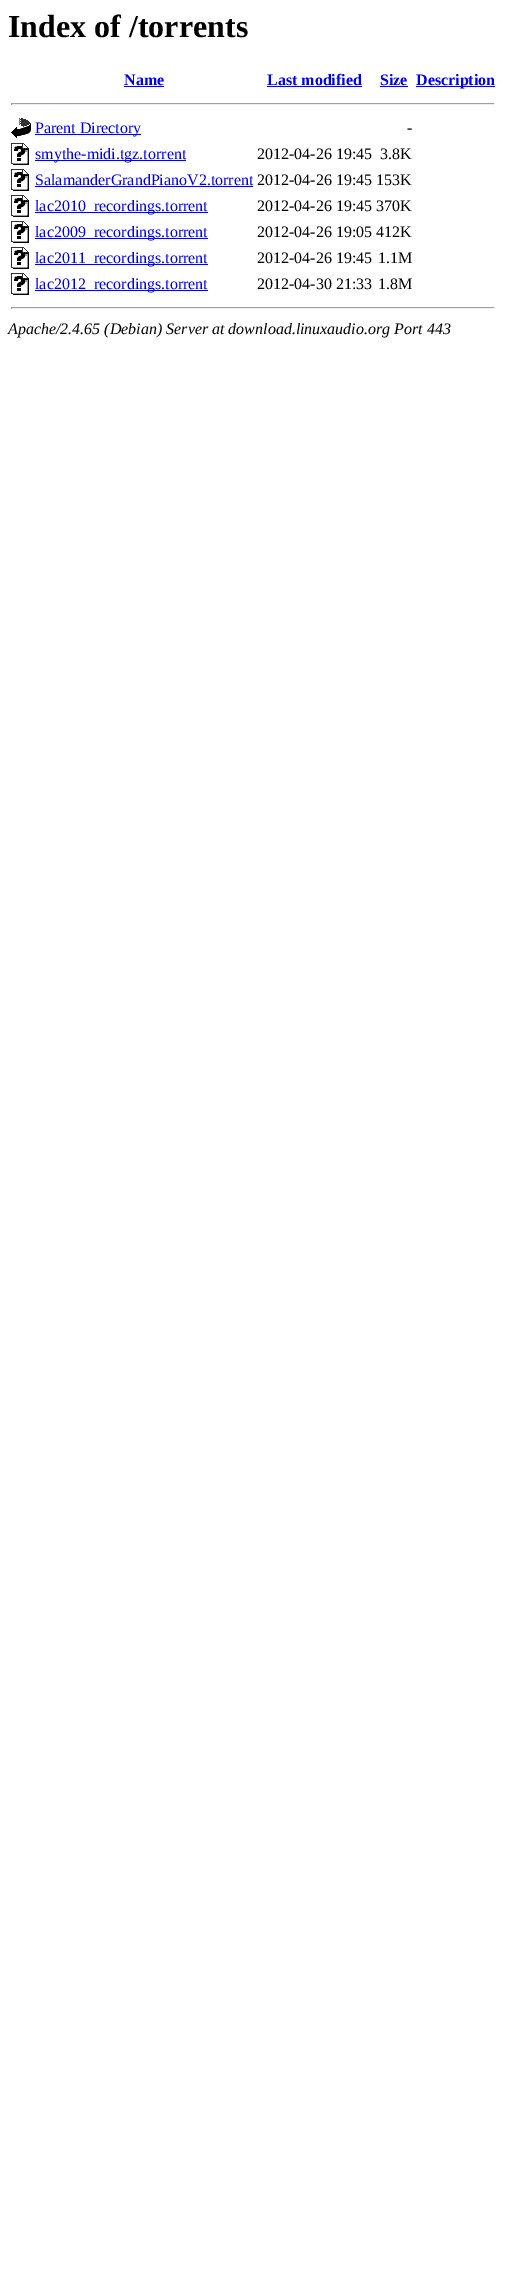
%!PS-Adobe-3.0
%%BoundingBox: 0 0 517 2269
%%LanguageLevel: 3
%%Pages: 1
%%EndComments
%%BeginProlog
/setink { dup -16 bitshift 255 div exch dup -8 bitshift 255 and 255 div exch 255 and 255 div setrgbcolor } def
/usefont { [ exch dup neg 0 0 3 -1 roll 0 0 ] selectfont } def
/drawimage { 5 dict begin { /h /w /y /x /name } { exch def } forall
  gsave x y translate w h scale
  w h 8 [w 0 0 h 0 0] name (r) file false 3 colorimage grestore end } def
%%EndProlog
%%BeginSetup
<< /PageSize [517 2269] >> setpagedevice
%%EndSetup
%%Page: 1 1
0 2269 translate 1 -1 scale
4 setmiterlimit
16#FFFFFF setink
0 0 517 2269 rectfill
/LiberationSerif-Bold 32 usefont
16#000000 setink
8 37 moveto (Index of /torrents) show
/LiberationSerif-Bold 16 usefont
16#0000EE setink
124 85 moveto (Name) show
124 86 40 1 rectfill
267 85 moveto (Last modified) show
267 86 95 1 rectfill
380 85 moveto (Size) show
380 86 28 1 rectfill
416 86 79 1 rectfill
416 85 moveto (Description) show
[
    [11 103 484 1 16#9F9F9F]
    [494 103 1 2 16#EEEEEE]
    [11 104 484 1 16#EEEEEE]
    [11 103 1 2 16#9F9F9F]
] { aload pop setink rectfill } forall
(img1.raw) 11 118 20 20 drawimage
16#0000EE setink
35 134 106 1 rectfill
/LiberationSerif-Regular 16 usefont
35 133 moveto (Parent Directory) show
16#000000 setink
407 133 moveto (-) show
(img2.raw) 11 143 18 22 drawimage
16#0000EE setink
35 160 151 1 rectfill
35 159 moveto (smythe-midi.tgz.torrent) show
16#000000 setink
257 159 moveto (2012-04-26 19:45) show
380 159 moveto (3.8K) show
(img2.raw) 11 169 18 22 drawimage
16#0000EE setink
35 185 moveto (SalamanderGrandPianoV2.torrent) show
35 186 218 1 rectfill
16#000000 setink
257 185 moveto (2012-04-26 19:45 153K) show
(img2.raw) 11 195 18 22 drawimage
16#0000EE setink
35 212 173 1 rectfill
35 211 moveto (lac2010_recordings.torrent) show
16#000000 setink
257 211 moveto (2012-04-26 19:45 370K) show
(img2.raw) 11 221 18 22 drawimage
16#0000EE setink
35 238 173 1 rectfill
35 237 moveto (lac2009_recordings.torrent) show
16#000000 setink
257 237 moveto (2012-04-26 19:05 412K) show
(img2.raw) 11 247 18 22 drawimage
16#0000EE setink
35 264 173 1 rectfill
35 263 moveto (lac2011_recordings.torrent) show
16#000000 setink
257 263 moveto (2012-04-26 19:45) show
378 263 moveto (1.1M) show
(img2.raw) 11 273 18 22 drawimage
16#0000EE setink
35 290 173 1 rectfill
35 289 moveto (lac2012_recordings.torrent) show
16#000000 setink
257 289 moveto (2012-04-30 21:33) show
378 289 moveto (1.8M) show
[
    [11 307 484 1 16#9F9F9F]
    [494 307 1 2 16#EEEEEE]
    [11 308 484 1 16#EEEEEE]
    [11 307 1 2 16#9F9F9F]
] { aload pop setink rectfill } forall
/LiberationSerif-Italic 16 usefont
16#000000 setink
8 334 moveto (Apache/2.4.65 \(Debian\) Server at download.linuxaudio.org Port 443) show
showpage
%%EOF
